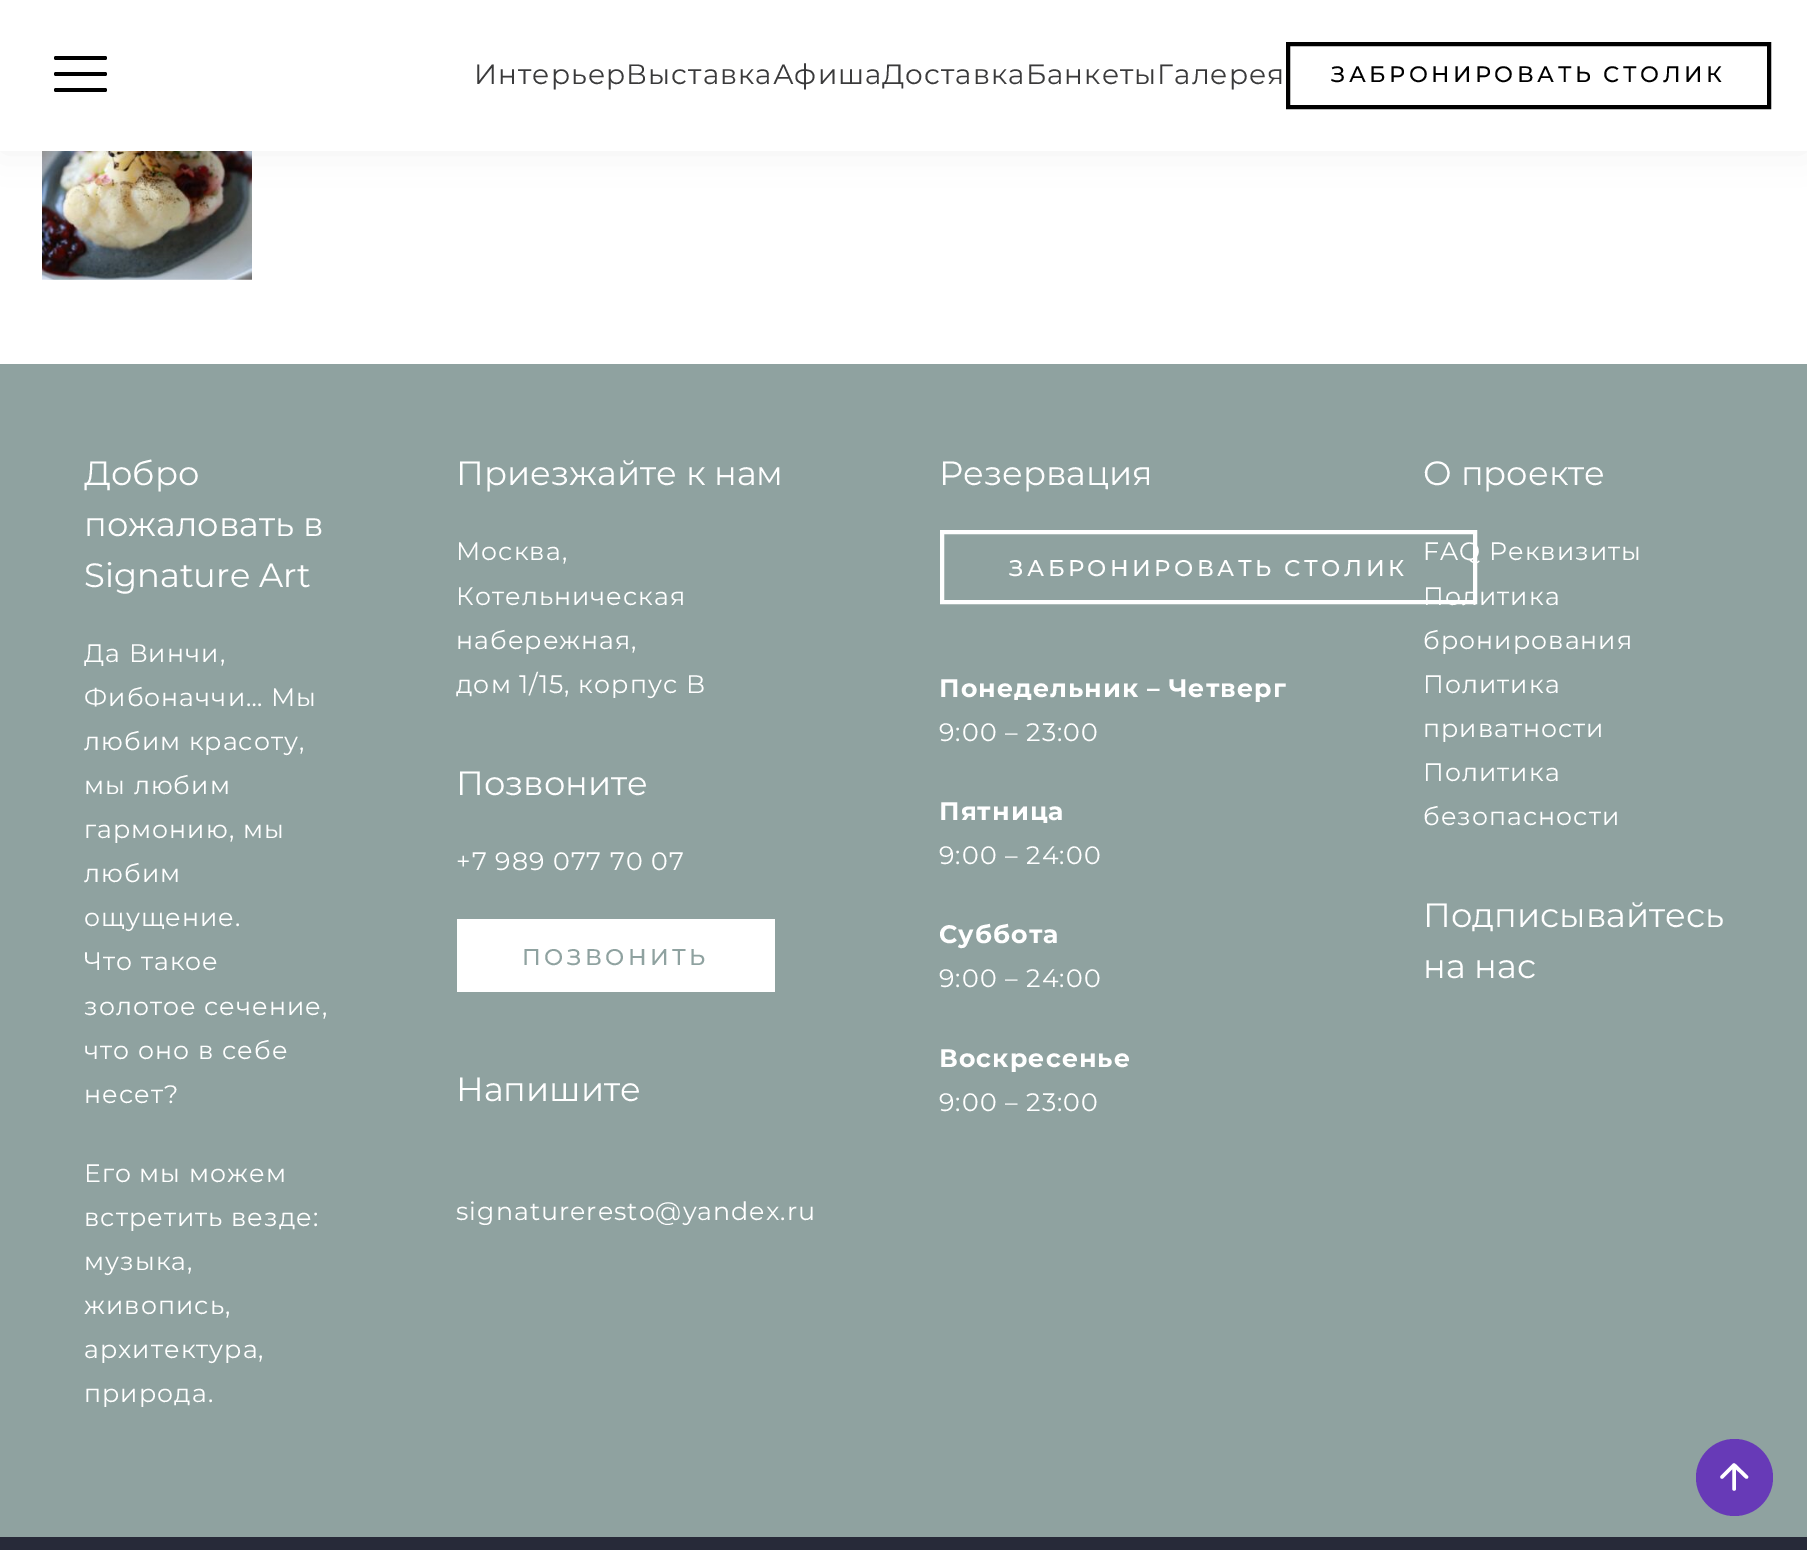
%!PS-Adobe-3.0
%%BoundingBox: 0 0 1807 1550
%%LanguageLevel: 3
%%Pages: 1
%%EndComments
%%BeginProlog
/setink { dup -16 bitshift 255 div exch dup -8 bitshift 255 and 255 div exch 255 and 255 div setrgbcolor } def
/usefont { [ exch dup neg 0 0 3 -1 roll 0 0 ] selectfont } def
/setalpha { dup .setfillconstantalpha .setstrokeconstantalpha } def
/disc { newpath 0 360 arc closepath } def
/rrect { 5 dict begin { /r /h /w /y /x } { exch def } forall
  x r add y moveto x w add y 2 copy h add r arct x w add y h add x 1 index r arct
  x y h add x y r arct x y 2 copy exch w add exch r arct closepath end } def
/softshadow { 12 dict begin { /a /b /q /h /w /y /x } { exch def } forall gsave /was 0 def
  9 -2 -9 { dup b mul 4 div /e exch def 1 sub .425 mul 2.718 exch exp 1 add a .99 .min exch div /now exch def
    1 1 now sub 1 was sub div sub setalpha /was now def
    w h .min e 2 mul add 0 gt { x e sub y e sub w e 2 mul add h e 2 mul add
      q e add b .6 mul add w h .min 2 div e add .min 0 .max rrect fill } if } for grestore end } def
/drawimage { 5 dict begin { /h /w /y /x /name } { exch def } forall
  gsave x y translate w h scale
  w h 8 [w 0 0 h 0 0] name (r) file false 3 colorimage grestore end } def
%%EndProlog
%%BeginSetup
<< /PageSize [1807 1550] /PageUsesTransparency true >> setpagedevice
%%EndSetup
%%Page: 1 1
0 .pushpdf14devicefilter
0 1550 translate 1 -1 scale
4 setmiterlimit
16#FFFFFF setink
0 0 1807 1550 rectfill
(img1.raw) 42 151 210 129 drawimage
16#0A0A14 setink
0 0 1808 151 0 21 0.06 softshadow
16#FFFFFF setink
0 0 1807 151 rectfill
16#000000 setink
54 72 53 4 2 rrect fill
54 56 53 4 2 rrect fill
54 88 53 4 2 rrect fill
/Montserrat-Regular 28 usefont
16#3A3A3B setink
474 84 moveto 1.05 0 (ИнтерьерВыставкаАфишаДоставкаБанкетыГалерея) ashow
16#000000 setink
4 setlinewidth
1288 44 481 63 rectstroke
/Montserrat-Medium 22.4 usefont
1331 82 moveto 3.5 0 (ЗАБРОНИРОВАТЬ СТОЛИК) ashow
16#8FA2A0 setink
0 364 1807 1173 rectfill
/Montserrat-Regular 33.75 usefont
16#FFFFFF setink
[
    [(Добро) 84 485]
    [(пожаловать в) 84 536]
    [(Signature Art) 84 587]
] { aload pop moveto show } forall
/Montserrat-Regular 25.25 usefont
84 662 moveto 1.05 0 (Да Винчи,) ashow
84 706 moveto 1.05 0 (Фибоначчи… Мы) ashow
84 750 moveto 1.05 0 (любим красоту,) ashow
84 794 moveto 1.05 0 (мы любим) ashow
84 838 moveto 1.05 0 (гармонию, мы) ashow
84 882 moveto 1.05 0 (любим) ashow
84 926 moveto 1.05 0 (ощущение.) ashow
84 970 moveto 1.05 0 (Что такое) ashow
84 1015 moveto 1.05 0 (золотое сечение,) ashow
84 1059 moveto 1.05 0 (что оно в себе) ashow
84 1103 moveto 1.05 0 (несет?) ashow
84 1182 moveto 1.05 0 (Его мы можем) ashow
84 1226 moveto 1.05 0 (встретить везде:) ashow
84 1270 moveto 1.05 0 (музыка,) ashow
84 1314 moveto 1.05 0 (живопись,) ashow
84 1358 moveto 1.05 0 (архитектура,) ashow
84 1402 moveto 1.05 0 (природа.) ashow
/Montserrat-Regular 33.75 usefont
456 485 moveto (Приезжайте к нам) show
/Montserrat-Regular 25.25 usefont
456 560 moveto 1.05 0 (Москва,) ashow
456 605 moveto 1.05 0 (Котельническая) ashow
456 649 moveto 1.05 0 (набережная,) ashow
456 693 moveto 1.05 0 (дом 1/15, корпус B) ashow
/Montserrat-Regular 33.75 usefont
456 795 moveto (Позвоните) show
/Montserrat-Regular 25.25 usefont
456 870 moveto 1.05 0 (+7 989 077 70 07) ashow
457 919 318 73 rectfill
/Montserrat-Medium 22.7 usefont
16#8FA2A0 setink
522 965 moveto 3.5 0 (ПОЗВОНИТЬ) ashow
/Montserrat-Regular 33.75 usefont
16#FFFFFF setink
456 1101 moveto (Напишите) show
/Montserrat-Regular 25.25 usefont
456 1220 moveto 1.05 0 (signatureresto@yandex.ru) ashow
/Montserrat-Regular 33.75 usefont
939 485 moveto (Резервация) show
942 532 533 70 rectstroke
/Montserrat-Medium 22.7 usefont
1009 576 moveto 3.5 0 (ЗАБРОНИРОВАТЬ СТОЛИК) ashow
/Montserrat-Bold 25.25 usefont
939 697 moveto 1.05 0 (Понедельник – Четверг) ashow
/Montserrat-Regular 25.25 usefont
939 741 moveto 1.05 0 (9:00 – 23:00) ashow
/Montserrat-Bold 25.25 usefont
939 820 moveto 1.05 0 (Пятница) ashow
/Montserrat-Regular 25.25 usefont
939 864 moveto 1.05 0 (9:00 – 24:00) ashow
/Montserrat-Bold 25.25 usefont
939 943 moveto 1.05 0 (Суббота) ashow
/Montserrat-Regular 25.25 usefont
939 987 moveto 1.05 0 (9:00 – 24:00) ashow
/Montserrat-Bold 25.25 usefont
939 1067 moveto 1.05 0 (Воскресенье) ashow
/Montserrat-Regular 25.25 usefont
939 1111 moveto 1.05 0 (9:00 – 23:00) ashow
/Montserrat-Regular 33.75 usefont
1423 485 moveto (О проекте) show
/Montserrat-Regular 25.25 usefont
1423 560 moveto 1.05 0 (FAQ Реквизиты) ashow
1423 605 moveto 1.05 0 (Политика) ashow
1423 649 moveto 1.05 0 (бронирования) ashow
1423 693 moveto 1.05 0 (Политика) ashow
1423 737 moveto 1.05 0 (приватности) ashow
1423 781 moveto 1.05 0 (Политика) ashow
1423 825 moveto 1.05 0 (безопасности) ashow
/Montserrat-Regular 33.75 usefont
1423 927 moveto (Подписывайтесь) show
1423 978 moveto (на нас) show
16#272A39 setink
0 1537 1807 13 rectfill
16#673AB7 setink
1734.5 1477.5 38.5 disc fill
16#FFFFFF setink
3.5 setlinewidth
1 setlinecap
1 setlinejoin
1734 1489 moveto 1734 1466.5 lineto 1722 1477 moveto 1734 1465 lineto 1746.5 1477 lineto stroke
.poppdf14devicefilter showpage
%%EOF
